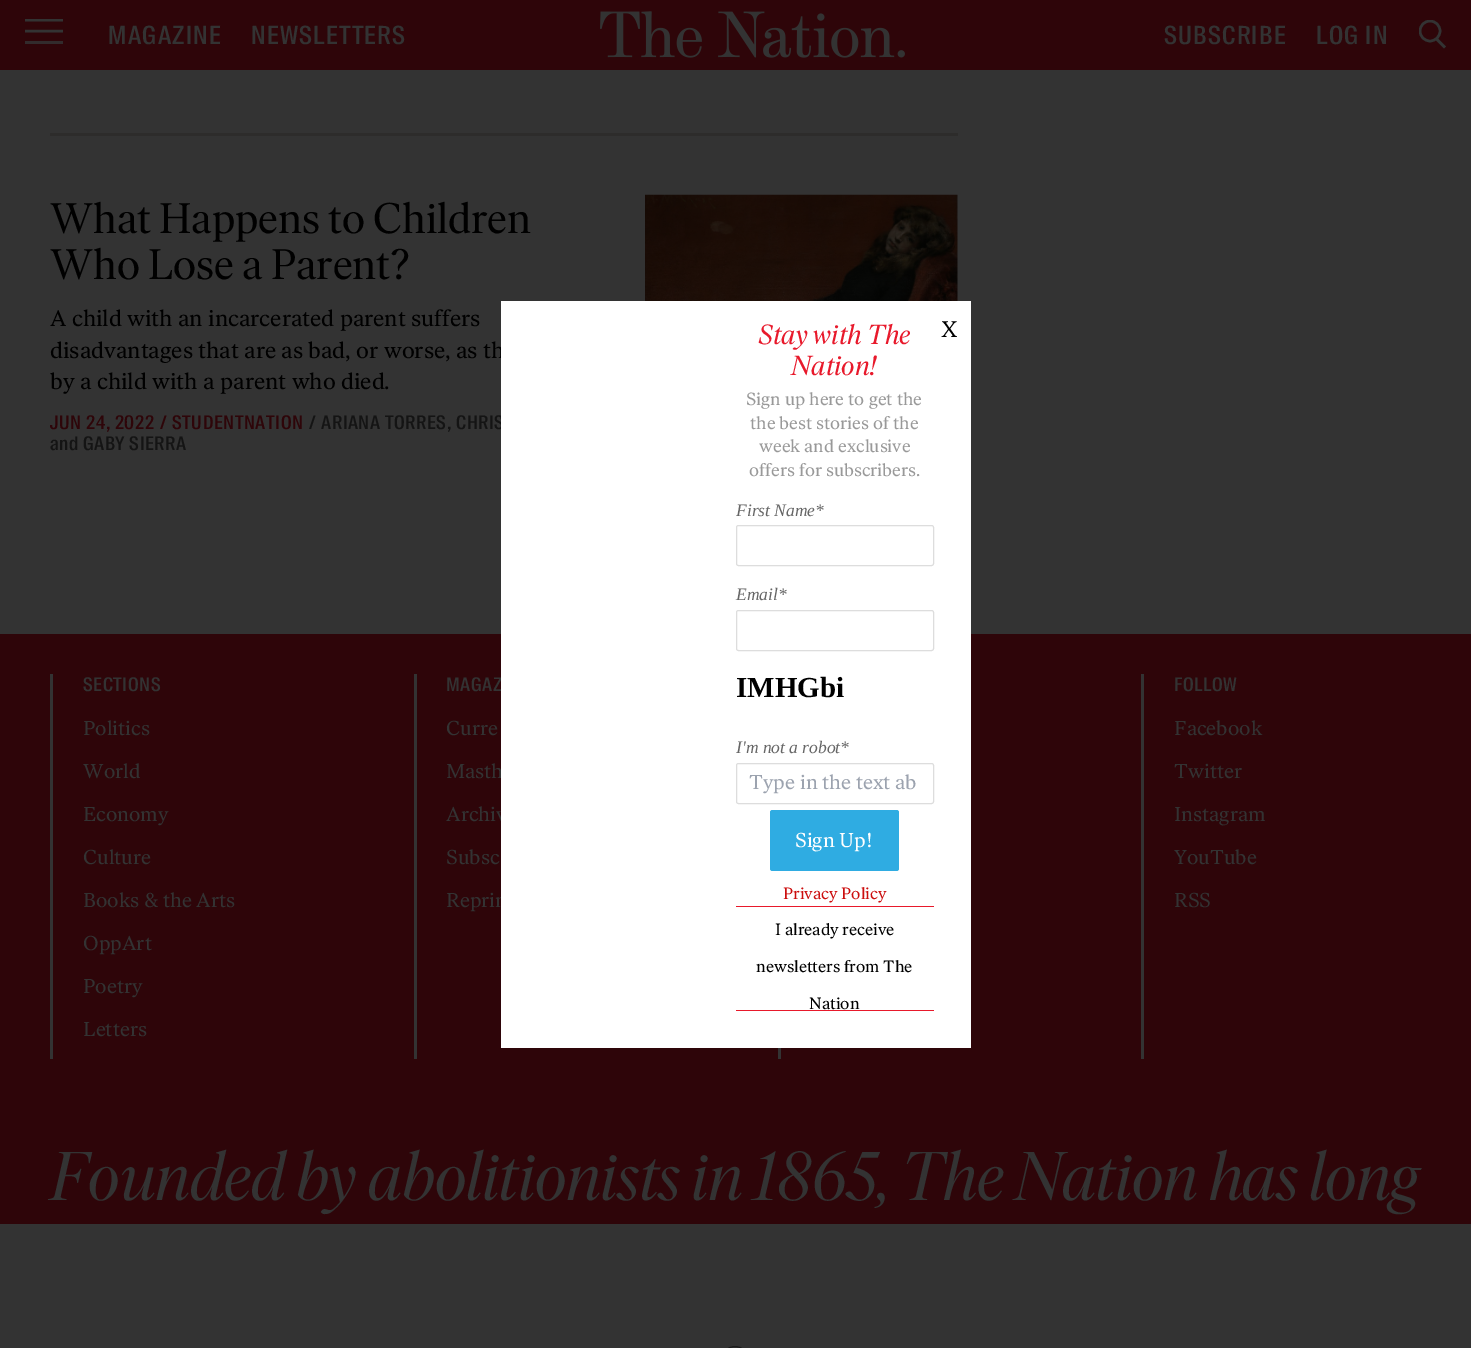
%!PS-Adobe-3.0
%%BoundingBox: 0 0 1471 1348
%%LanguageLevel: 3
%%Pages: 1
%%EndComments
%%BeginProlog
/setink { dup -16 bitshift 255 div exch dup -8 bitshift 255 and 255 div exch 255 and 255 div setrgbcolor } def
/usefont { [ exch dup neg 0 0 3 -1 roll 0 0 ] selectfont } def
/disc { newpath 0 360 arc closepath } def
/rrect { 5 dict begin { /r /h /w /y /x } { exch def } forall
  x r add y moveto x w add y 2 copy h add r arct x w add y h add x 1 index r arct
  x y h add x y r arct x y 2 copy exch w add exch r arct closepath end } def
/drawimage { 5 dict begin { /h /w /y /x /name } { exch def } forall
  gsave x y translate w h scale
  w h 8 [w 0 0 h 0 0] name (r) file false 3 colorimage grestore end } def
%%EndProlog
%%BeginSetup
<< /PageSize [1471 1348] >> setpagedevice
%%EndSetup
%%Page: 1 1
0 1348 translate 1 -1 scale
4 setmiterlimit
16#333333 setink
0 0 1471 1348 rectfill
16#2E0509 setink
0 0 1471 70 rectfill
gsave
25 19 38 37 rectclip
16#333333 setink
2.5 setlinewidth
25 20 moveto 69 20 lineto 25 31 moveto 69 31 lineto stroke
grestore
16#322B2C setink
25 41 38 3 rectfill
/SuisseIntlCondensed-Medium 25 usefont
16#333333 setink
108 44 moveto 1.25 0 (MAGAZINE) ashow
251 44 moveto 1.25 0 (NEWSLETTERS) ashow
(img1.raw) 600 11 305 47 drawimage
1164 44 moveto 1.25 0 (SUBSCRIBE) ashow
1316 44 moveto 1.25 0 (LOG IN) ashow
gsave
1419 20 27 29 rectclip
2.5 setlinewidth
1430 31 10 disc stroke
grestore
2.5 setlinewidth
1436.5 39 moveto 1445 47.5 lineto stroke
16#2D2C2B setink
50 133 908 3 rectfill
/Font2-Regular 42.5 usefont
16#000000 setink
50 233 moveto (What Happens to Children) show
50 279 moveto (Who Lose a Parent?) show
/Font-Regular 22.5 usefont
[
    [(A child with an incarcerated parent suffers) 50 326]
    [(disadvantages that are as bad, or worse, as th) 50 358]
    [(by a child with a parent who died.) 50 389]
] { aload pop moveto show } forall
/SuisseIntlCondensed-Medium 18.75 usefont
16#2E0509 setink
50 429 moveto 0.6 0 (JUN 24, 2022) ashow
160 429 moveto 0.6 0 (/) ashow
172 429 moveto 0.6 0 (STUDENTNATION) ashow
16#141414 setink
309 429 moveto 0.6 0 (/) ashow
321 429 moveto 0.6 0 (ARIANA TORRES) ashow
447 429 moveto 0.6 0 (, CHRIS) ashow
50 450 moveto 0.6 0 (and GABY SIERRA) ashow
(img2.raw) 645 194 313 107 drawimage
16#2E0509 setink
0 634 1471 590 rectfill
16#333333 setink
446 691 moveto 0.6 0 (MAGAZ) ashow
/Font-Regular 20 usefont
[
    [(Masth) 446 778]
    [(Archiv) 446 821]
    [(Reprin) 446 907]
] { aload pop moveto show } forall
16#FFFFFF setink
501 301 470 747 rectfill
/Font2-Italic 27.5 usefont
16#E8192B setink
758 344 moveto (Stay with The) show
791 375 moveto (Nation!) show
/Font-Regular 17.5 usefont
16#999999 setink
[
    [(Sign up here to get the) 746 405]
    [(the best stories of the) 750 429]
    [(week and exclusive) 759 452]
    [(offers for subscribers.) 749 476]
] { aload pop moveto show } forall
/Font-Regular 22.5 usefont
16#000000 setink
941 337 moveto (X) show
/LiberationSerif-Italic 17.5 usefont
16#666666 setink
736 516 moveto (First Name*) show
16#DDDDDD setink
1 setlinewidth
736.5 525.5 197 40 2 rrect stroke
16#666666 setink
736 600 moveto (Email*) show
16#DDDDDD setink
736.5 610.5 197 40 2 rrect stroke
/LiberationSerif-Bold 29 usefont
16#000000 setink
736 697 moveto (IMHGbi) show
/LiberationSerif-Italic 17.5 usefont
16#666666 setink
736 753 moveto (I'm not a robot*) show
16#DDDDDD setink
736.5 763.5 197 40 2 rrect stroke
/Font-Regular 20 usefont
16#9CA3AF setink
749 789 moveto (Type in the text ab) show
16#2FACE2 setink
770 810 129 61 2.5 rrect fill
16#FFFFFF setink
795 847 moveto (Sign Up!) show
16#E8192B setink
736 906 198 1 rectfill
/Font-Regular 16.25 usefont
16#CC0E0E setink
783 899 moveto (Privacy Policy) show
16#E8192B setink
736 1010 198 1 rectfill
16#000000 setink
[
    [(I already receive) 775 935]
    [(newsletters from The) 756 972]
    [(Nation) 809 1009]
] { aload pop moveto show } forall
16#333333 setink
50 674 3 385 rectfill
/SuisseIntlCondensed-Medium 18.75 usefont
83 691 moveto 0.6 0 (SECTIONS) ashow
/Font-Regular 20 usefont
[
    [(Politics) 83 735]
    [(World) 83 778]
    [(Economy) 83 821]
    [(Culture) 83 864]
    [(Books & the Arts) 83 907]
    [(OppArt) 83 950]
    [(Poetry) 83 993]
    [(Letters) 83 1036]
] { aload pop moveto show } forall
414 674 3 385 rectfill
446 735 moveto (Curre) show
446 864 moveto (Subsc) show
1141 674 3 385 rectfill
/SuisseIntlCondensed-Medium 18.75 usefont
1174 691 moveto 0.6 0 (FOLLOW) ashow
/Font-Regular 20 usefont
[
    [(Facebook) 1174 735]
    [(Twitter) 1174 778]
    [(Instagram) 1174 821]
    [(YouTube) 1174 864]
    [(RSS) 1174 907]
] { aload pop moveto show } forall
778 1048 3 11 rectfill
/Font-Italic 68.75 usefont
50 1200 moveto (Founded by abolitionists in 1865, The Nation has long) show
16#1B1B1B setink
721.5 1346.5 27 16 13.5 rrect stroke
showpage
%%EOF
